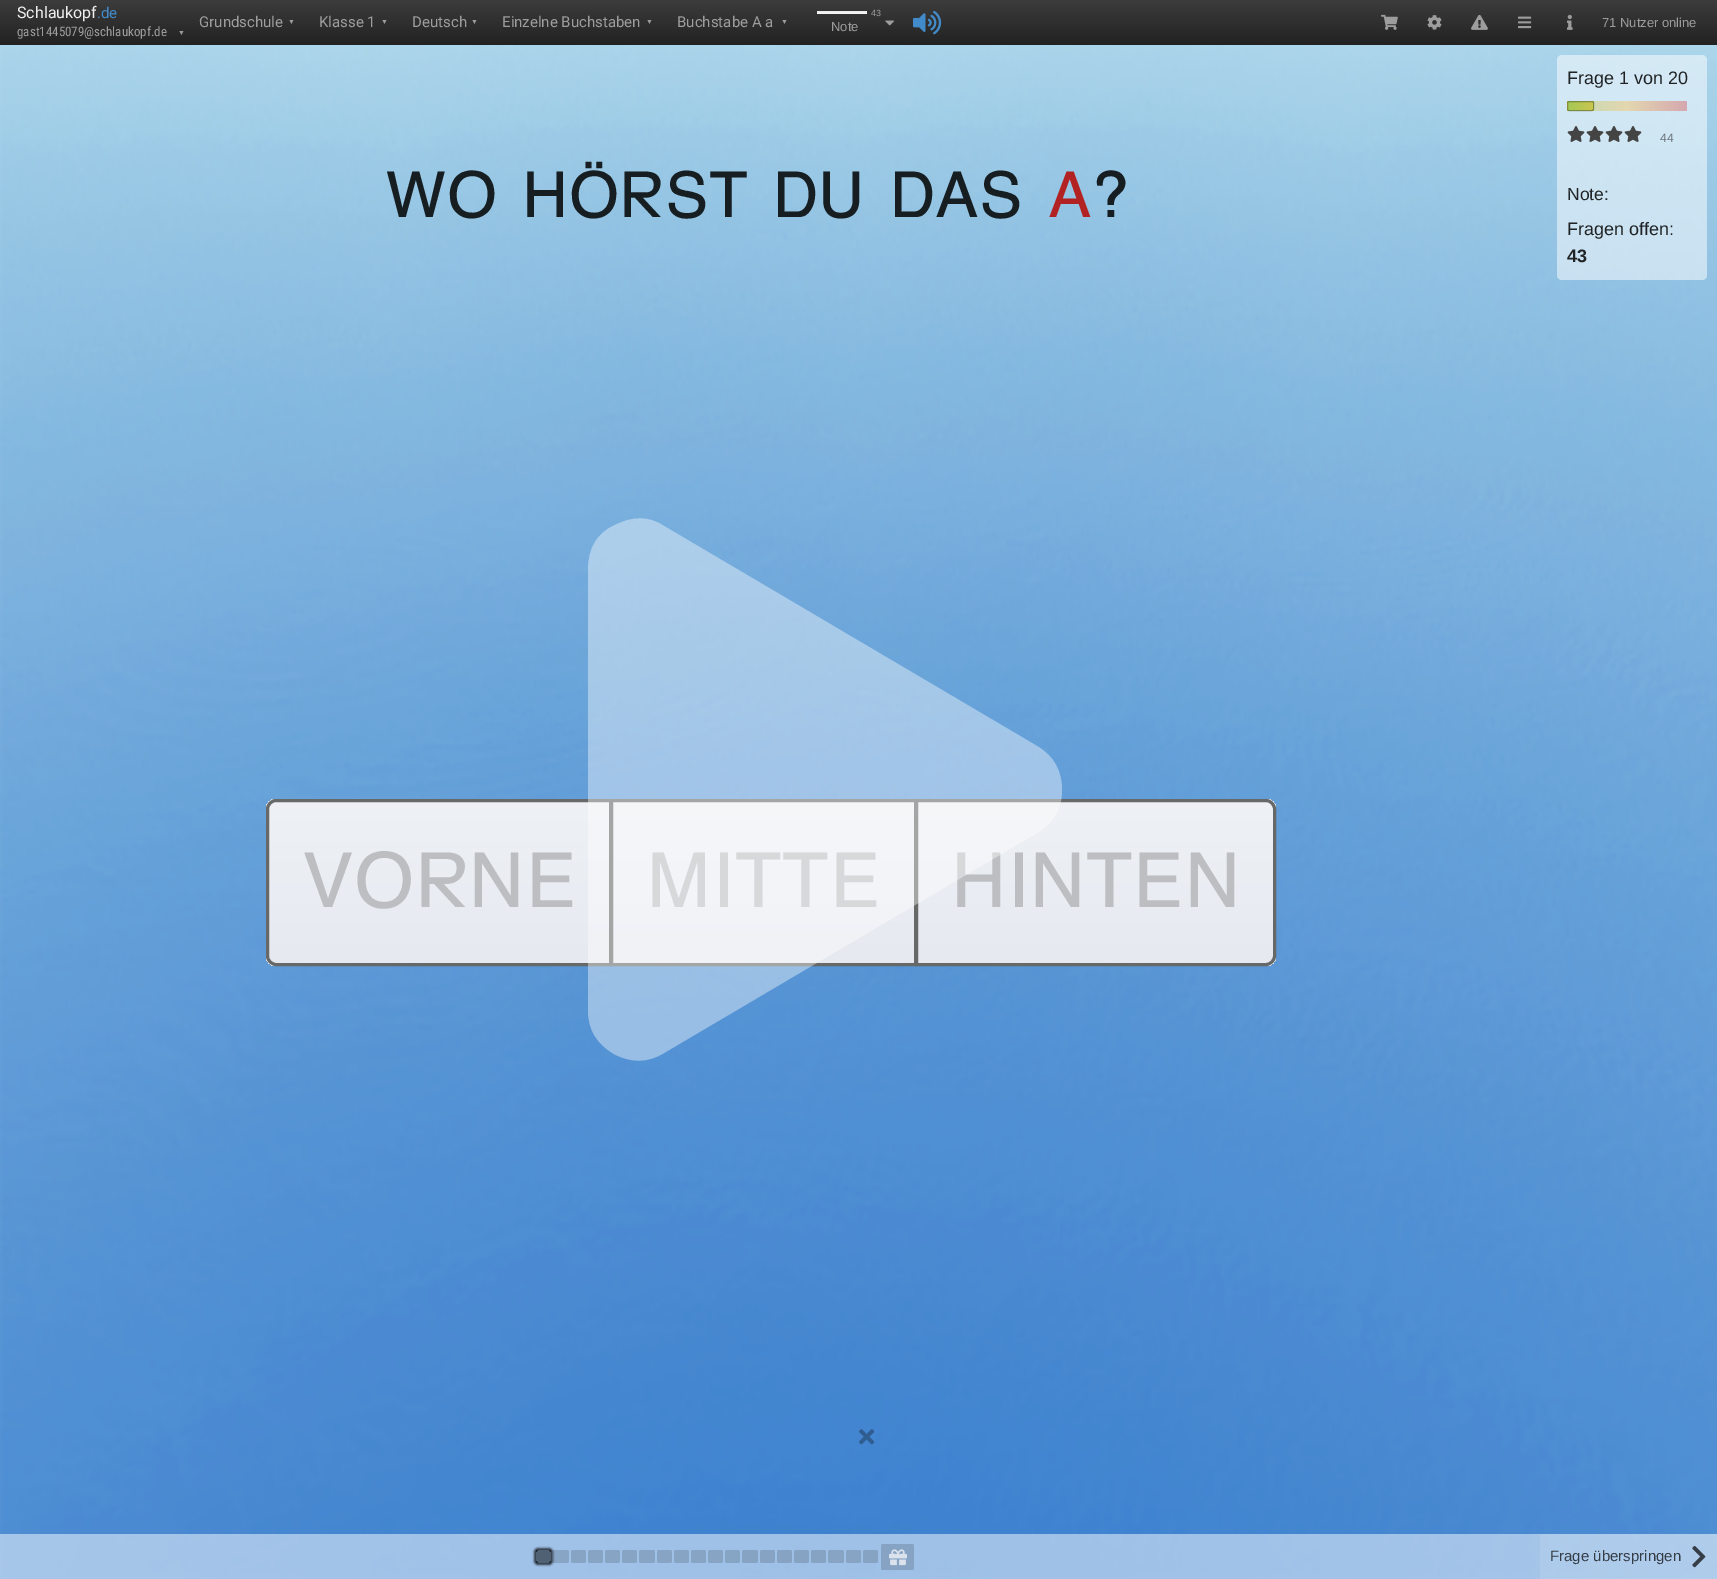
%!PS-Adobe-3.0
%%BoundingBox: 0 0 1717 1579
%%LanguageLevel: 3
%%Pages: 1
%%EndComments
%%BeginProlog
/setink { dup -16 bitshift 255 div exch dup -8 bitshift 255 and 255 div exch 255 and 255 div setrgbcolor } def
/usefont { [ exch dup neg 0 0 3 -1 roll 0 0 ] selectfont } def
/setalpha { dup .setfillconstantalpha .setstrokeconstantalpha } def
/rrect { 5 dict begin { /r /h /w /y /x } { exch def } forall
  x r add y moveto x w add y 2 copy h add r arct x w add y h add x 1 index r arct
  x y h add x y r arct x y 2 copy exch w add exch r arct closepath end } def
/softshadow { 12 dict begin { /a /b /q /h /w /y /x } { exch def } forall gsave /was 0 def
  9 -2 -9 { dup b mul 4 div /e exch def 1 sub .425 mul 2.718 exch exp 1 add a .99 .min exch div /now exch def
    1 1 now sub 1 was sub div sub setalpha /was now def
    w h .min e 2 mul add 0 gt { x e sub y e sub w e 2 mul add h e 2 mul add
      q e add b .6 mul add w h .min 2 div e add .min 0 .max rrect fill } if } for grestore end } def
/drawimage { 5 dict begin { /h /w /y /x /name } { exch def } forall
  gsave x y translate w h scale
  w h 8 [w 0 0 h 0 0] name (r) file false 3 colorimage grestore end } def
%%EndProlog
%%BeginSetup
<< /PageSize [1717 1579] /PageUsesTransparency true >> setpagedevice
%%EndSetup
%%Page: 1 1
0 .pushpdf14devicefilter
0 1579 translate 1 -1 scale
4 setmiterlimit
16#FFFFFF setink
0 0 1717 1579 rectfill
gsave 0 0 moveto 1717 0 lineto 1717 45 lineto 0 45 lineto closepath clip newpath
<< /ShadingType 2 /ColorSpace /DeviceRGB /Coords [859 0 859 45] /Extend [true true] /Function << /FunctionType 2 /Domain [0 1] /C0 [0.235 0.235 0.235] /C1 [0.133 0.133 0.133] /N 1 >> >> shfill grestore
/Roboto-Regular 16 usefont
16#EEEEEE setink
17 18 moveto (Schlaukopf) show
/Roboto-Regular 15 usefont
16#428BCA setink
97 18 moveto (.de) show
/RobotoCondensed-Regular 13 usefont
16#9D9D9D setink
17 36 moveto (gast1445079@schlaukopf.de) show
/LiberationSans-Regular 7 usefont
178 35 moveto 4 0 (▼) ashow
gsave 817 11 50 3 1.5 rrect clip newpath
<< /ShadingType 2 /ColorSpace /DeviceRGB /Coords [842 11 842 14] /Extend [true true] /Function << /FunctionType 2 /Domain [0 1] /C0 [0.922 0.922 0.922] /C1 [0.961 0.961 0.961] /N 1 >> >> shfill grestore
/LiberationSans-Regular 9 usefont
871 16 moveto (43) show
/LiberationSans-Regular 13 usefont
831 31 moveto (Note) show
(img1.raw) 885 20 9 6 drawimage
/Roboto-Regular 15 usefont
199 27 moveto (Grundschule) show
/LiberationSans-Regular 7 usefont
288 24 moveto 4 0 (▼) ashow
/Roboto-Regular 15 usefont
319 27 moveto (Klasse 1) show
/LiberationSans-Regular 7 usefont
381 24 moveto 4 0 (▼) ashow
/Roboto-Regular 15 usefont
412 27 moveto (Deutsch) show
/LiberationSans-Regular 7 usefont
471 24 moveto 4 0 (▼) ashow
/Roboto-Regular 15 usefont
502 27 moveto (Einzelne Buchstaben) show
/LiberationSans-Regular 7 usefont
646 24 moveto 4 0 (▼) ashow
/Roboto-Regular 15 usefont
677 27 moveto (Buchstabe A a) show
/LiberationSans-Regular 7 usefont
781 24 moveto 4 0 (▼) ashow
(img2.raw) 913 10 29 25 drawimage
(img8.raw) 0 45 1717 1534 drawimage
gsave 610 799 moveto 917 799 lineto 917 802 lineto 610 802 lineto closepath clip newpath
<< /ShadingType 2 /ColorSpace /DeviceRGB /Coords [764 802 764 641] /Extend [true true] /Function << /FunctionType 2 /Domain [0 1] /C0 [0.902 0.914 0.941] /C1 [0.933 0.945 0.961] /N 1 >> >> shfill grestore
gsave 612 802 moveto 915 802 lineto 915 963 lineto 612 963 lineto closepath clip newpath
<< /ShadingType 2 /ColorSpace /DeviceRGB /Coords [764 963 764 802] /Extend [true true] /Function << /FunctionType 2 /Domain [0 1] /C0 [0.902 0.914 0.941] /C1 [0.933 0.945 0.961] /N 1 >> >> shfill grestore
gsave 610 963 moveto 917 963 lineto 917 966 lineto 610 966 lineto closepath clip newpath
<< /ShadingType 2 /ColorSpace /DeviceRGB /Coords [764 1124 764 963] /Extend [true true] /Function << /FunctionType 2 /Domain [0 1] /C0 [0.902 0.914 0.941] /C1 [0.933 0.945 0.961] /N 1 >> >> shfill grestore
0.95 setalpha
16#606262 setink
3 setlinewidth
611.5 800.5 304 164 rectstroke
gsave
276 799 moveto 612 799 lineto 612 966 lineto 276 966 lineto 270.5 966 266 961.5 266 956 curveto 266 809 lineto 266 803.5 270.5 799 276 799 curveto closepath clip newpath
1 setalpha
gsave 266 799 moveto 612 799 lineto 612 802 lineto 266 802 lineto closepath clip newpath
<< /ShadingType 2 /ColorSpace /DeviceRGB /Coords [439 802 439 641] /Extend [true true] /Function << /FunctionType 2 /Domain [0 1] /C0 [0.902 0.914 0.941] /C1 [0.933 0.945 0.961] /N 1 >> >> shfill grestore
gsave 266 802 moveto 612 802 lineto 612 963 lineto 266 963 lineto closepath clip newpath
<< /ShadingType 2 /ColorSpace /DeviceRGB /Coords [439 963 439 802] /Extend [true true] /Function << /FunctionType 2 /Domain [0 1] /C0 [0.902 0.914 0.941] /C1 [0.933 0.945 0.961] /N 1 >> >> shfill grestore
gsave 266 963 moveto 612 963 lineto 612 966 lineto 266 966 lineto closepath clip newpath
<< /ShadingType 2 /ColorSpace /DeviceRGB /Coords [439 1124 439 963] /Extend [true true] /Function << /FunctionType 2 /Domain [0 1] /C0 [0.902 0.914 0.941] /C1 [0.933 0.945 0.961] /N 1 >> >> shfill grestore
grestore
276 800.5 moveto 610.5 800.5 lineto 610.5 964.5 lineto 276 964.5 lineto 271.5 964.5 267.5 960.5 267.5 956 curveto 267.5 809 lineto 267.5 804.5 271.5 800.5 276 800.5 curveto closepath stroke
/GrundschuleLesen-Regular 78 usefont
1 setalpha
16#BCBEC2 setink
646 907 moveto (MITTE) show
gsave
915 799 moveto 1266 799 lineto 1271.5 799 1276 803.5 1276 809 curveto 1276 956 lineto 1276 961.5 1271.5 966 1266 966 curveto 915 966 lineto closepath clip newpath
gsave 915 799 moveto 1276 799 lineto 1276 802 lineto 915 802 lineto closepath clip newpath
<< /ShadingType 2 /ColorSpace /DeviceRGB /Coords [1096 802 1096 641] /Extend [true true] /Function << /FunctionType 2 /Domain [0 1] /C0 [0.902 0.914 0.941] /C1 [0.933 0.945 0.961] /N 1 >> >> shfill grestore
gsave 915 802 moveto 1276 802 lineto 1276 963 lineto 915 963 lineto closepath clip newpath
<< /ShadingType 2 /ColorSpace /DeviceRGB /Coords [1096 963 1096 802] /Extend [true true] /Function << /FunctionType 2 /Domain [0 1] /C0 [0.902 0.914 0.941] /C1 [0.933 0.945 0.961] /N 1 >> >> shfill grestore
gsave 915 963 moveto 1276 963 lineto 1276 966 lineto 915 966 lineto closepath clip newpath
<< /ShadingType 2 /ColorSpace /DeviceRGB /Coords [1096 1124 1096 963] /Extend [true true] /Function << /FunctionType 2 /Domain [0 1] /C0 [0.902 0.914 0.941] /C1 [0.933 0.945 0.961] /N 1 >> >> shfill grestore
grestore
0.95 setalpha
16#606262 setink
916.5 800.5 moveto 1266 800.5 lineto 1270.5 800.5 1274.5 804.5 1274.5 809 curveto 1274.5 956 lineto 1274.5 960.5 1270.5 964.5 1266 964.5 curveto 916.5 964.5 lineto closepath stroke
1 setalpha
16#BCBEC2 setink
951 907 moveto (HINTEN) show
0.4 setalpha
16#FFFFFF setink
1037 746 moveto 1054 756 1062 771 1062 790 curveto 1062 809 1054 823 1037 833 curveto 664 1053 lineto 648 1063 631 1063 614 1054 curveto 597 1044 588 1030 588 1010 curveto 588 570 lineto 588 548 597 533 615 525 curveto 633 516 649 516 664 526 curveto closepath fill
1 setalpha
(img3.raw) 1381 14 17 16 drawimage
(img4.raw) 1427 15 15 15 drawimage
(img5.raw) 1471 14 17 16 drawimage
(img6.raw) 1518 16 14 13 drawimage
(img7.raw) 1567 14 6 16 drawimage
/LiberationSans-Regular 13 usefont
16#9D9D9D setink
1602 27 moveto (71 Nutzer online) show
/GrundschuleLesen-Regular 65 usefont
16#171E22 setink
385 217 moveto (WO HÖRST DU DAS) show
16#B22222 setink
1048 217 moveto (A) show
16#171E22 setink
1092 217 moveto (?) show
/GrundschuleLesen-Regular 78 usefont
16#BCBEC2 setink
302 907 moveto (VORNE) show
0.5 setalpha
16#FFFFFF setink
1557 55 150 225 5 rrect fill
/LiberationSans-Regular 18 usefont
1 setalpha
16#202325 setink
1567 84 moveto (Frage 1 von 20) show
gsave 1567 101 moveto 1687 101 lineto 1687 111 lineto 1567 111 lineto closepath clip newpath
<< /ShadingType 2 /ColorSpace /DeviceRGB /Coords [1567 106 1687 106] /Extend [true true] /Function << /FunctionType 3 /Domain [0 1] /Functions [<< /FunctionType 2 /Domain [0 1] /C0 [0.753 0.859 0.71] /C1 [0.894 0.843 0.686] /N 1 >> << /FunctionType 2 /Domain [0 1] /C0 [0.894 0.843 0.686] /C1 [0.835 0.659 0.686] /N 1 >>] /Bounds [0.5] /Encode [0 1 0 1] >> >> shfill grestore
gsave
1567 101 27 10 2 rrect clip newpath
gsave 1567 101 moveto 1568 101 lineto 1568 111 lineto 1567 111 lineto closepath clip newpath
<< /ShadingType 2 /ColorSpace /DeviceRGB /Coords [1543 106 1663 106] /Extend [true true] /Function << /FunctionType 3 /Domain [0 1] /Functions [<< /FunctionType 2 /Domain [0 1] /C0 [0.647 0.788 0.337] /C1 [1 0.749 0.278] /N 1 >> << /FunctionType 2 /Domain [0 1] /C0 [1 0.749 0.278] /C1 [0.855 0.286 0.286] /N 1 >>] /Bounds [0.5] /Encode [0 1 0 1] >> >> shfill grestore
gsave 1568 101 moveto 1593 101 lineto 1593 111 lineto 1568 111 lineto closepath clip newpath
<< /ShadingType 2 /ColorSpace /DeviceRGB /Coords [1568 106 1688 106] /Extend [true true] /Function << /FunctionType 3 /Domain [0 1] /Functions [<< /FunctionType 2 /Domain [0 1] /C0 [0.647 0.788 0.337] /C1 [1 0.749 0.278] /N 1 >> << /FunctionType 2 /Domain [0 1] /C0 [1 0.749 0.278] /C1 [0.855 0.286 0.286] /N 1 >>] /Bounds [0.5] /Encode [0 1 0 1] >> >> shfill grestore
gsave 1593 101 moveto 1594 101 lineto 1594 111 lineto 1593 111 lineto closepath clip newpath
<< /ShadingType 2 /ColorSpace /DeviceRGB /Coords [1593 106 1713 106] /Extend [true true] /Function << /FunctionType 3 /Domain [0 1] /Functions [<< /FunctionType 2 /Domain [0 1] /C0 [0.647 0.788 0.337] /C1 [1 0.749 0.278] /N 1 >> << /FunctionType 2 /Domain [0 1] /C0 [1 0.749 0.278] /C1 [0.855 0.286 0.286] /N 1 >>] /Bounds [0.5] /Encode [0 1 0 1] >> >> shfill grestore
grestore
0.3 setalpha
16#000000 setink
1 setlinewidth
1567.5 101.5 26 9 1.5 rrect stroke
1 setalpha
(img9.raw) 1567 126 18 16 drawimage
(img10.raw) 1586 126 18 16 drawimage
(img11.raw) 1605 126 18 16 drawimage
(img12.raw) 1624 126 18 16 drawimage
/LiberationSans-Regular 12 usefont
16#687379 setink
1660 142 moveto (44) show
/LiberationSans-Regular 17.5 usefont
16#202325 setink
1567 200 moveto (Note:) show
/LiberationSans-Regular 18 usefont
1567 235 moveto (Fragen offen:) show
/LiberationSans-Bold 18 usefont
1567 262 moveto (43) show
(img13.raw) 859 1429 16 16 drawimage
0.5 setalpha
16#FFFFFF setink
0 1534 1717 45 rectfill
gsave
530 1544 moveto 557 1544 lineto 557 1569 lineto 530 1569 lineto closepath 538 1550 moveto 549 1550 lineto 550 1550 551 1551 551 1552 curveto 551 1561 lineto 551 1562 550 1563 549 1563 curveto 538 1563 lineto 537 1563 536 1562 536 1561 curveto 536 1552 lineto 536 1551 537 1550 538 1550 curveto closepath eoclip newpath
1 setalpha
16#000000 setink
534 1548 19 17 4 1 0.7 softshadow
grestore
16#000000 setink
536 1550 15 13 2 rrect fill
0.15 setalpha
553 1550 16 13 2 rrect fill
1 setalpha
16#88A4C5 setink
571 1550 15 13 2 rrect fill
588 1550 15 13 2 rrect fill
16#87A4C5 setink
605 1550 15 13 2 rrect fill
622 1550 15 13 2 rrect fill
16#87A4C4 setink
639 1550 16 13 2 rrect fill
657 1550 15 13 2 rrect fill
674 1550 15 13 2 rrect fill
691 1550 15 13 2 rrect fill
708 1550 15 13 2 rrect fill
16#86A4C4 setink
725 1550 15 13 2 rrect fill
16#86A3C4 setink
742 1550 16 13 2 rrect fill
760 1550 15 13 2 rrect fill
777 1550 15 13 2 rrect fill
794 1550 15 13 2 rrect fill
811 1550 15 13 2 rrect fill
16#87A4C4 setink
828 1550 16 13 2 rrect fill
846 1550 15 13 2 rrect fill
16#86A3C4 setink
863 1550 15 13 2 rrect fill
881 1544 33 26 2 rrect fill
(img14.raw) 889 1549 18 17 drawimage
0.1 setalpha
16#FFFFFF setink
1540 1534 177 45 rectfill
/LiberationSans-Regular 15 usefont
1 setalpha
16#343D46 setink
1550 1561 moveto (Frage überspringen) show
(img15.raw) 1692 1546 14 22 drawimage
.poppdf14devicefilter showpage
%%EOF
